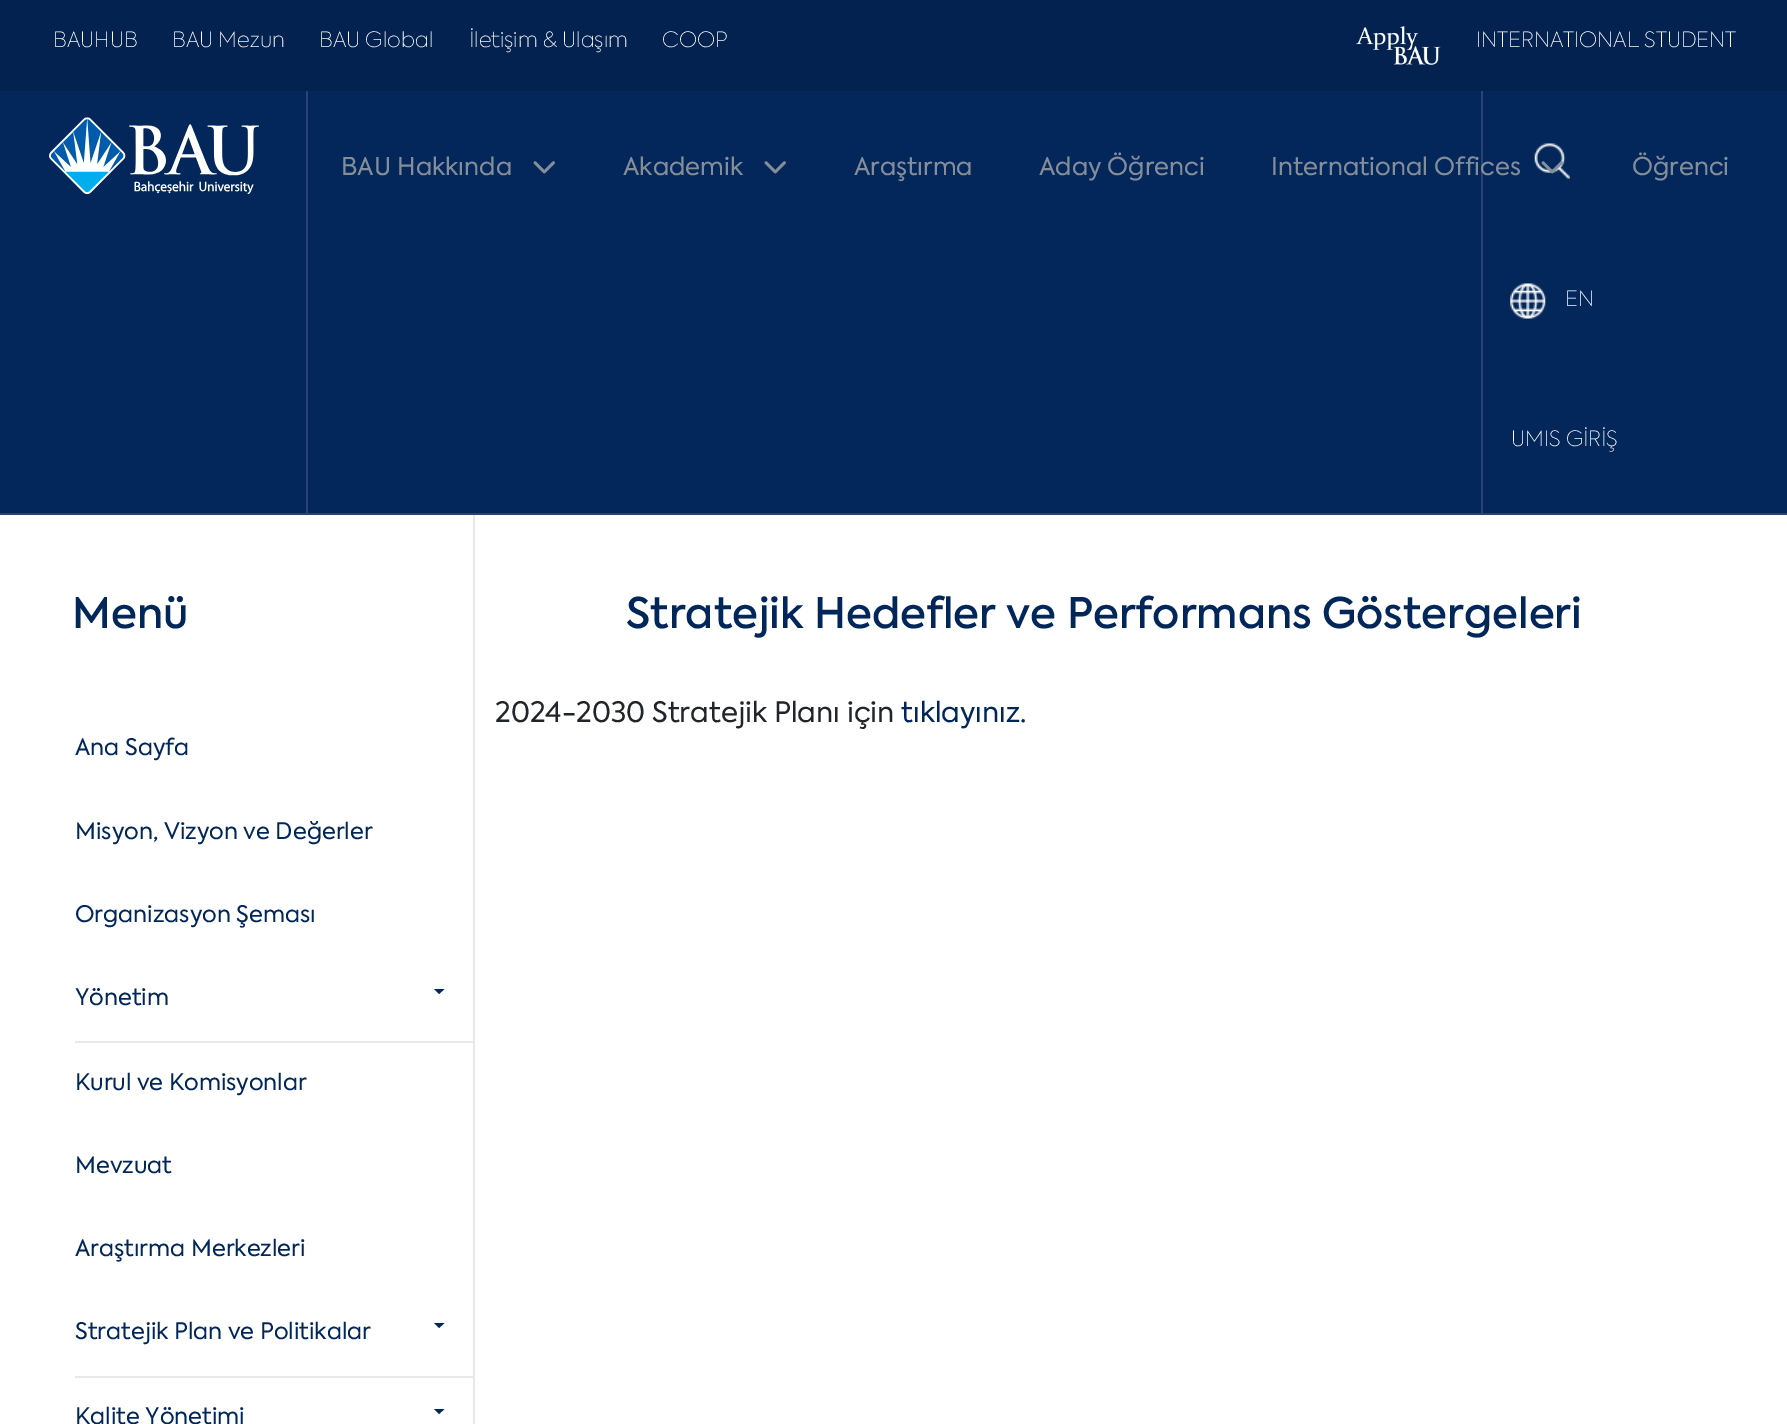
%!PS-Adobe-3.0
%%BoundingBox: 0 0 1787 1424
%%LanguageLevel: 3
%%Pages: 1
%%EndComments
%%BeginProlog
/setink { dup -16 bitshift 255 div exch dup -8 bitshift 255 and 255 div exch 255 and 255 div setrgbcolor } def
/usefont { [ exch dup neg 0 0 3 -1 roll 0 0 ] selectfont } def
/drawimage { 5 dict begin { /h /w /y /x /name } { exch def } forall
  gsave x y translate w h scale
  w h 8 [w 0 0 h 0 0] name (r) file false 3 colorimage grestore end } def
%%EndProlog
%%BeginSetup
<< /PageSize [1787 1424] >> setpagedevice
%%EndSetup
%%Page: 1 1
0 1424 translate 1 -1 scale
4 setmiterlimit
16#FFFFFF setink
0 0 1787 1424 rectfill
16#03224F setink
0 0 1787 91 rectfill
/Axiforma-Thin 21 usefont
16#FFFFFF setink
[
    [(BAUHUB) 53 47]
    [(BAU Mezun) 172 47]
    [(BAU Global) 319 47]
    [(İletişim & Ulaşım) 469 47]
    [(COOP) 662 47]
] { aload pop moveto show } forall
(img1.raw) 1356 26 85 39 drawimage
1476 47 moveto (INTERNATIONAL STUDENT) show
[
    [0 91 1787 422 16#03275A]
    [0 513 1787 2 16#2C4175]
    [306 91 2 422 16#2C4175]
] { aload pop setink rectfill } forall
(img2.raw) 49 117 210 77 drawimage
/Axiforma-Regular 24.5 usefont
16#848E9B setink
341 175 moveto (BAU Hakkında) show
(img3.raw) 533 161 22 13 drawimage
623 175 moveto (Akademik) show
(img3.raw) 764 161 22 13 drawimage
854 175 moveto (Araştırma) show
1039 175 moveto (Aday Öğrenci) show
16#2C4175 setink
1481 91 2 422 rectfill
16#848E9B setink
1271 175 moveto (International Offices) show
(img5.raw) 1534 143 36 36 drawimage
(img4.raw) 1541 161 22 13 drawimage
1632 175 moveto (Öğrenci) show
(img6.raw) 1510 283 36 36 drawimage
/Axiforma-Thin 21 usefont
16#FFFFFF setink
1565 306 moveto (EN) show
1511 446 moveto (UMIS GİRİŞ) show
16#E9E9E9 setink
473 515 2 909 rectfill
/Axiforma-Medium 42 usefont
16#01265A setink
72 628 moveto (Menü) show
/Axiforma-Regular 22.75 usefont
[
    [(Ana Sayfa) 75 755]
    [(Misyon, Vizyon ve Değerler) 75 839]
    [(Organizasyon Şeması) 75 922]
] { aload pop moveto show } forall
16#E9E9E9 setink
75 1041 398 2 rectfill
16#01265A setink
75 1005 moveto (Yönetim) show
434 989 moveto 444.5 989 lineto 439 994 lineto closepath fill
[
    [(Kurul ve Komisyonlar) 75 1090]
    [(Mevzuat) 75 1173]
    [(Araştırma Merkezleri) 75 1256]
] { aload pop moveto show } forall
16#E9E9E9 setink
75 1376 398 2 rectfill
16#01265A setink
75 1339 moveto (Stratejik Plan ve Politikalar) show
434 1323 moveto 444.5 1323 lineto 439 1328 lineto closepath fill
75 1424 moveto (Kalite Yönetimi) show
434 1409 moveto 444.5 1409 lineto 439 1414 lineto closepath fill
/Axiforma-Medium 42 usefont
626 628 moveto (Stratejik Hedefler ve Performans Göstergeleri) show
/Axiforma-Regular 28 usefont
16#212529 setink
495 722 moveto (2024-2030 Stratejik Planı için) show
16#01265A setink
901 722 moveto (tıklayınız.) show
showpage
%%EOF
